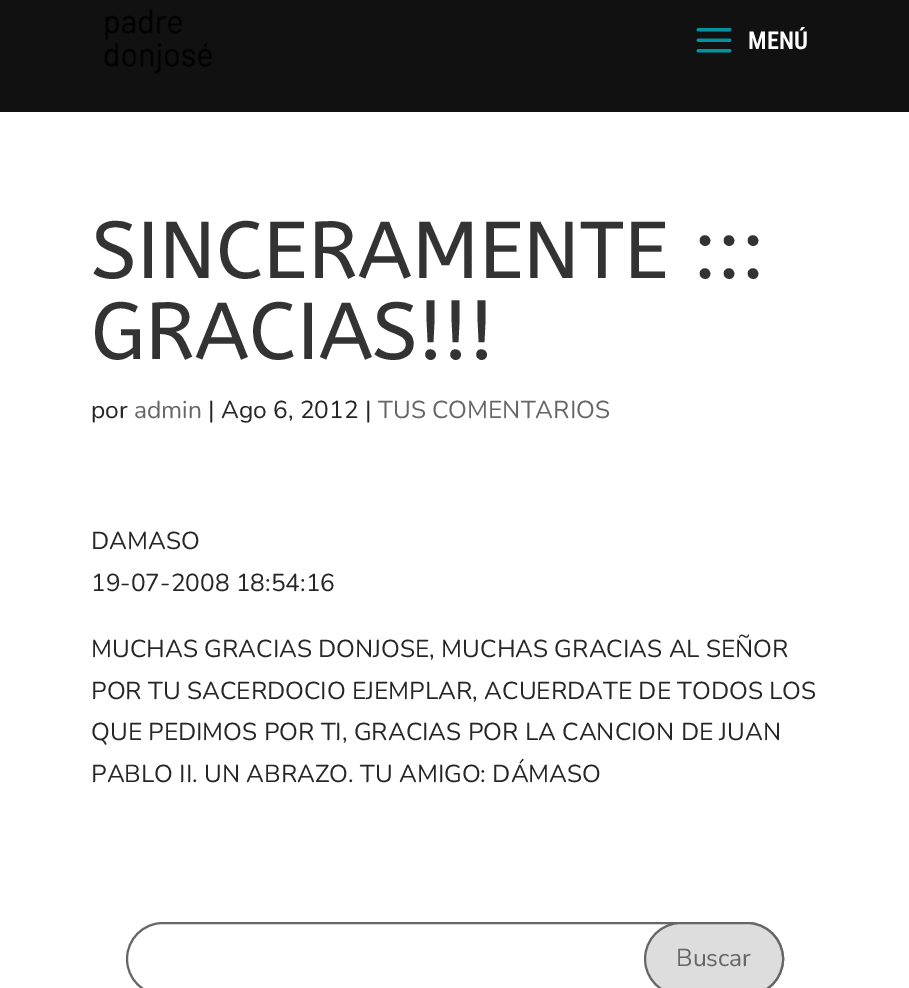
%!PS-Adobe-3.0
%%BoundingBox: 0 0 909 988
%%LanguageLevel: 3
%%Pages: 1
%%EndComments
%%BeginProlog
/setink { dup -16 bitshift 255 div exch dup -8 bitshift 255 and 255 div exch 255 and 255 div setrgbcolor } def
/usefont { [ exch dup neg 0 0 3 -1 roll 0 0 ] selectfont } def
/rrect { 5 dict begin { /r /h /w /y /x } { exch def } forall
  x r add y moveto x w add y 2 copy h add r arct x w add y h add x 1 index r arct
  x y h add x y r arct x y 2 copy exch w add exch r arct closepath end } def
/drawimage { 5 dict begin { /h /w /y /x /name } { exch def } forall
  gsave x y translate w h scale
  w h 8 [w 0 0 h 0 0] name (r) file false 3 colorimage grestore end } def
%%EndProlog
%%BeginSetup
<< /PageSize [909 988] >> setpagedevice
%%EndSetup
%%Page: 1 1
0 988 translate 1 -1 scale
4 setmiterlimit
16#FFFFFF setink
0 0 909 988 rectfill
16#111111 setink
0 0 909 112 rectfill
(img1.raw) 104 9 108 65 drawimage
(img2.raw) 696 28 36 25 drawimage
/RobotoCondensed-SemiBold 24.5 usefont
16#FFFFFF setink
748 49 moveto (MENÚ) show
/ABeeZee-Regular 80.5 usefont
16#333333 setink
91 278 moveto (SINCERAMENTE :::) show
91 359 moveto (GRACIAS!!!) show
/Nunito-Regular 24.5 usefont
16#262626 setink
91 418 moveto (por) show
16#666666 setink
134 418 moveto (admin) show
16#262626 setink
208 418 moveto (| Ago 6, 2012 |) show
16#666666 setink
378 418 moveto (TUS COMENTARIOS) show
16#262626 setink
[
    [(DAMASO) 91 549]
    [(19-07-2008 18:54:16) 91 591]
    [(MUCHAS GRACIAS DONJOSE, MUCHAS GRACIAS AL SEÑOR) 91 657]
    [(POR TU SACERDOCIO EJEMPLAR, ACUERDATE DE TODOS LOS) 91 699]
    [(QUE PEDIMOS POR TI, GRACIAS POR LA CANCION DE JUAN) 91 740]
    [(PABLO II. UN ABRAZO. TU AMIGO: DÁMASO) 91 782]
] { aload pop moveto show } forall
16#666666 setink
2 setlinewidth
127 923 656 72 36 rrect stroke
16#DDDDDD setink
645 923 138 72 36 rrect gsave fill grestore
16#666666 setink
stroke
676 966 moveto (Buscar) show
showpage
%%EOF
